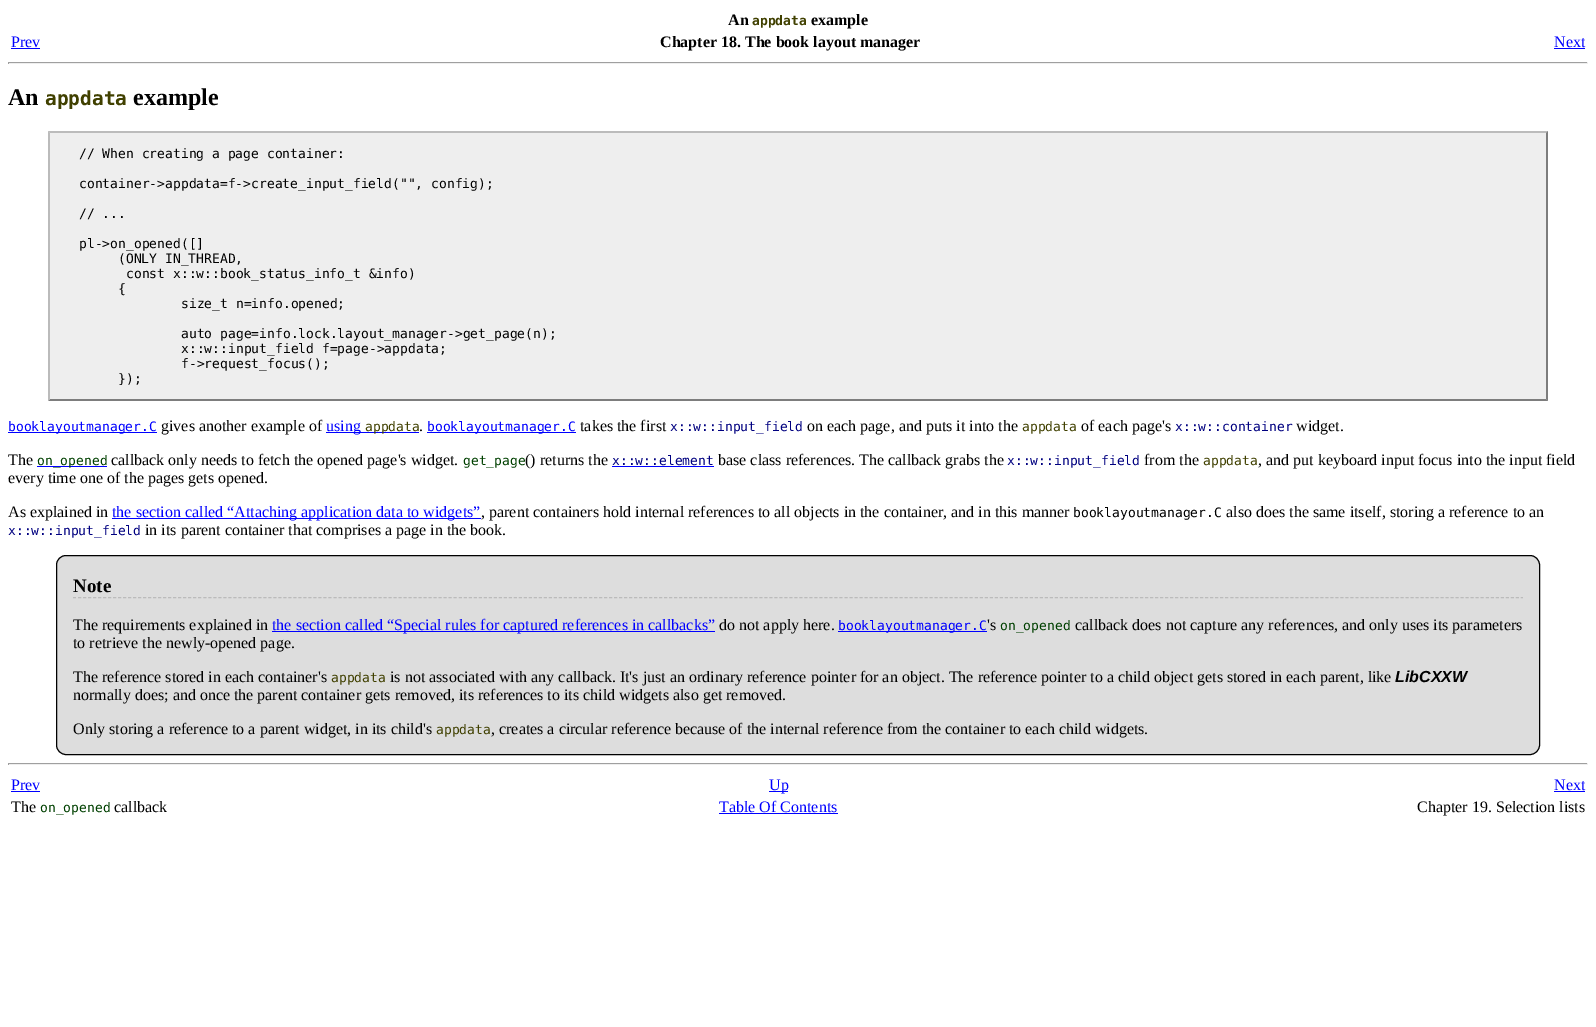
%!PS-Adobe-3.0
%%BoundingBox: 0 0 1596 1027
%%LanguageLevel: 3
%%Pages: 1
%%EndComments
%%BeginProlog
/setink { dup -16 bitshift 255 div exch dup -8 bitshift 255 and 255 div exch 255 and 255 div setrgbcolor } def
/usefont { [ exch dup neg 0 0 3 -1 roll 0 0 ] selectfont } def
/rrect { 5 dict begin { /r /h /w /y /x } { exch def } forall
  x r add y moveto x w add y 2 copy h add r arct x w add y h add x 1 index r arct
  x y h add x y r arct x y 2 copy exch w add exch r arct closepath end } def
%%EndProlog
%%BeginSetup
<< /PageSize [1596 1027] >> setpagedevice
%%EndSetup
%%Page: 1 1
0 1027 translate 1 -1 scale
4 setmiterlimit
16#FFFFFF setink
0 0 1596 1027 rectfill
/LiberationSerif-Bold 16 usefont
16#000000 setink
728 25 moveto (An) show
/DejaVuSansMono-Bold 13 usefont
16#404000 setink
752 25 moveto (appdata) show
/LiberationSerif-Bold 16 usefont
16#000000 setink
811 25 moveto (example) show
/LiberationSerif-Regular 16 usefont
16#0000FF setink
11 47 moveto (Prev) show
11 48 29 1 rectfill
/LiberationSerif-Bold 16 usefont
16#000000 setink
660 47 moveto (Chapter 18. The book layout manager) show
/LiberationSerif-Regular 16 usefont
16#0000FF setink
1554 47 moveto (Next) show
[
    [1554 48 31 1 16#0000FF]
    [8 62 1580 1 16#9F9F9F]
    [1587 62 1 2 16#EEEEEE]
    [8 63 1580 1 16#EEEEEE]
    [8 62 1 2 16#9F9F9F]
] { aload pop setink rectfill } forall
/LiberationSerif-Bold 24 usefont
16#000000 setink
8 105 moveto (An) show
/DejaVuSansMono-Bold 19.5 usefont
16#404000 setink
45 105 moveto (appdata) show
/LiberationSerif-Bold 24 usefont
16#000000 setink
133 105 moveto (example) show
16#EEEEEE setink
48 131 1500 270 rectfill
16#BBBBBB setink
48 131 moveto 1548 131 lineto 1546 133 lineto 50 133 lineto closepath fill
16#7D7D7D setink
1548 131 moveto 1548 401 lineto 1546 399 lineto 1546 133 lineto closepath fill
1548 401 moveto 48 401 lineto 50 399 lineto 1546 399 lineto closepath fill
16#BBBBBB setink
48 401 moveto 48 131 lineto 50 133 lineto 50 399 lineto closepath fill
/DejaVuSansMono-Regular 13 usefont
16#000000 setink
[
    [(// When creating a page container:) 79 158]
    [(container->appdata=f->create_input_field\("", config\);) 79 188]
    [(// ...) 79 218]
    [(pl->on_opened\([]) 79 248]
    [(\(ONLY IN_THREAD,) 118 263]
    [(const x::w::book_status_info_t &info\)) 126 278]
    [({) 118 293]
    [(size_t n=info.opened;) 181 308]
    [(auto page=info.lock.layout_manager->get_page\(n\);) 181 338]
    [(x::w::input_field f=page->appdata;) 181 353]
    [(f->request_focus\(\);) 181 368]
    [(}\);) 118 383]
] { aload pop moveto show } forall
16#0000FF setink
8 432 149 1 rectfill
8 431 moveto (booklayoutmanager.C) show
/LiberationSerif-Regular 16 usefont
16#000000 setink
161 431 moveto (gives another example of) show
16#0000FF setink
326 432 93 1 rectfill
326 431 moveto (using) show
/DejaVuSansMono-Regular 13 usefont
16#404000 setink
365 431 moveto (appdata) show
/LiberationSerif-Regular 16 usefont
16#000000 setink
419 431 moveto (.) show
16#0000FF setink
427 432 149 1 rectfill
/DejaVuSansMono-Regular 13 usefont
427 431 moveto (booklayoutmanager.C) show
/LiberationSerif-Regular 16 usefont
16#000000 setink
580 431 moveto (takes the first) show
/DejaVuSansMono-Regular 13 usefont
16#000080 setink
670 431 moveto (x::w::input_field) show
/LiberationSerif-Regular 16 usefont
16#000000 setink
807 431 moveto (on each page, and puts it into the) show
/DejaVuSansMono-Regular 13 usefont
16#404000 setink
1022 431 moveto (appdata) show
/LiberationSerif-Regular 16 usefont
16#000000 setink
1081 431 moveto (of each page's) show
/DejaVuSansMono-Regular 13 usefont
16#000080 setink
1175 431 moveto (x::w::container) show
/LiberationSerif-Regular 16 usefont
16#000000 setink
1296 431 moveto (widget.) show
8 465 moveto (The) show
16#0000FF setink
37 466 70 1 rectfill
/DejaVuSansMono-Regular 13 usefont
16#004000 setink
37 465 moveto (on_opened) show
/LiberationSerif-Regular 16 usefont
16#000000 setink
111 465 moveto (callback only needs to fetch the opened page's widget.) show
/DejaVuSansMono-Regular 13 usefont
16#004000 setink
463 465 moveto (get_page) show
/LiberationSerif-Regular 16 usefont
16#000000 setink
525 465 moveto (\(\) returns the) show
/DejaVuSansMono-Regular 13 usefont
16#000080 setink
612 465 moveto (x::w::element) show
16#0000FF setink
612 466 102 1 rectfill
/LiberationSerif-Regular 16 usefont
16#000000 setink
718 465 moveto (base class references. The callback grabs the) show
/DejaVuSansMono-Regular 13 usefont
16#000080 setink
1007 465 moveto (x::w::input_field) show
/LiberationSerif-Regular 16 usefont
16#000000 setink
1144 465 moveto (from the) show
/DejaVuSansMono-Regular 13 usefont
16#404000 setink
1203 465 moveto (appdata) show
/LiberationSerif-Regular 16 usefont
16#000000 setink
[
    [(, and put keyboard input focus into the input field) 1258 465]
    [(every time one of the pages gets opened.) 8 483]
    [(As explained in) 8 517]
] { aload pop moveto show } forall
16#0000FF setink
112 518 369 1 rectfill
112 517 moveto (the section called “Attaching application data to widgets”) show
16#000000 setink
481 517 moveto (, parent containers hold internal references to all objects in the container, and in this manner) show
/DejaVuSansMono-Regular 13 usefont
1073 517 moveto (booklayoutmanager.C) show
/LiberationSerif-Regular 16 usefont
1226 517 moveto (also does the same itself, storing a reference to an) show
/DejaVuSansMono-Regular 13 usefont
16#000080 setink
8 535 moveto (x::w::input_field) show
/LiberationSerif-Regular 16 usefont
16#000000 setink
145 535 moveto (in its parent container that comprises a page in the book.) show
16#DDDDDD setink
56.5 555.5 1483 199 9.5 rrect gsave fill grestore
16#000000 setink
stroke
16#BBBBBB setink
[3 2.01] 0 setdash
73 597.5 moveto 1523 597.5 lineto stroke
/LiberationSerif-Bold 19 usefont
16#000000 setink
73 592 moveto (Note) show
/LiberationSerif-Regular 16 usefont
73 630 moveto (The requirements explained in) show
16#0000FF setink
272 631 443 1 rectfill
272 630 moveto (the section called “Special rules for captured references in callbacks”) show
16#000000 setink
719 630 moveto (do not apply here.) show
16#0000FF setink
838 631 149 1 rectfill
/DejaVuSansMono-Regular 13 usefont
838 630 moveto (booklayoutmanager.C) show
/LiberationSerif-Regular 16 usefont
16#000000 setink
987 630 moveto ('s) show
/DejaVuSansMono-Regular 13 usefont
16#004000 setink
1000 630 moveto (on_opened) show
/LiberationSerif-Regular 16 usefont
16#000000 setink
[
    [(callback does not capture any references, and only uses its parameters) 1075 630]
    [(to retrieve the newly-opened page.) 73 648]
    [(The reference stored in each container's) 73 682]
] { aload pop moveto show } forall
/DejaVuSansMono-Regular 13 usefont
16#404000 setink
331 682 moveto (appdata) show
/LiberationSerif-Regular 16 usefont
16#000000 setink
390 682 moveto (is not associated with any callback. It's just an ordinary reference pointer for an object. The reference pointer to a child object gets stored in each parent, like) show
/LiberationSans-BoldItalic 16 usefont
1395 682 moveto (LibCXXW) show
/LiberationSerif-Regular 16 usefont
73 700 moveto (normally does; and once the parent container gets removed, its references to its child widgets also get removed.) show
73 734 moveto (Only storing a reference to a parent widget, in its child's) show
/DejaVuSansMono-Regular 13 usefont
16#404000 setink
436 734 moveto (appdata) show
/LiberationSerif-Regular 16 usefont
16#000000 setink
491 734 moveto (, creates a circular reference because of the internal reference from the container to each child widgets.) show
[
    [8 763 1580 1 16#9F9F9F]
    [1587 763 1 2 16#EEEEEE]
    [8 764 1580 1 16#EEEEEE]
    [8 763 1 2 16#9F9F9F]
] { aload pop setink rectfill } forall
16#0000FF setink
11 790 moveto (Prev) show
11 791 29 1 rectfill
769 791 19 1 rectfill
769 790 moveto (Up) show
1554 790 moveto (Next) show
1554 791 31 1 rectfill
16#000000 setink
11 812 moveto (The) show
/DejaVuSansMono-Regular 13 usefont
16#004000 setink
40 812 moveto (on_opened) show
/LiberationSerif-Regular 16 usefont
16#000000 setink
114 812 moveto (callback) show
16#0000FF setink
719 812 moveto (Table Of Contents) show
719 813 119 1 rectfill
16#000000 setink
1417 812 moveto (Chapter 19. Selection lists) show
showpage
%%EOF
